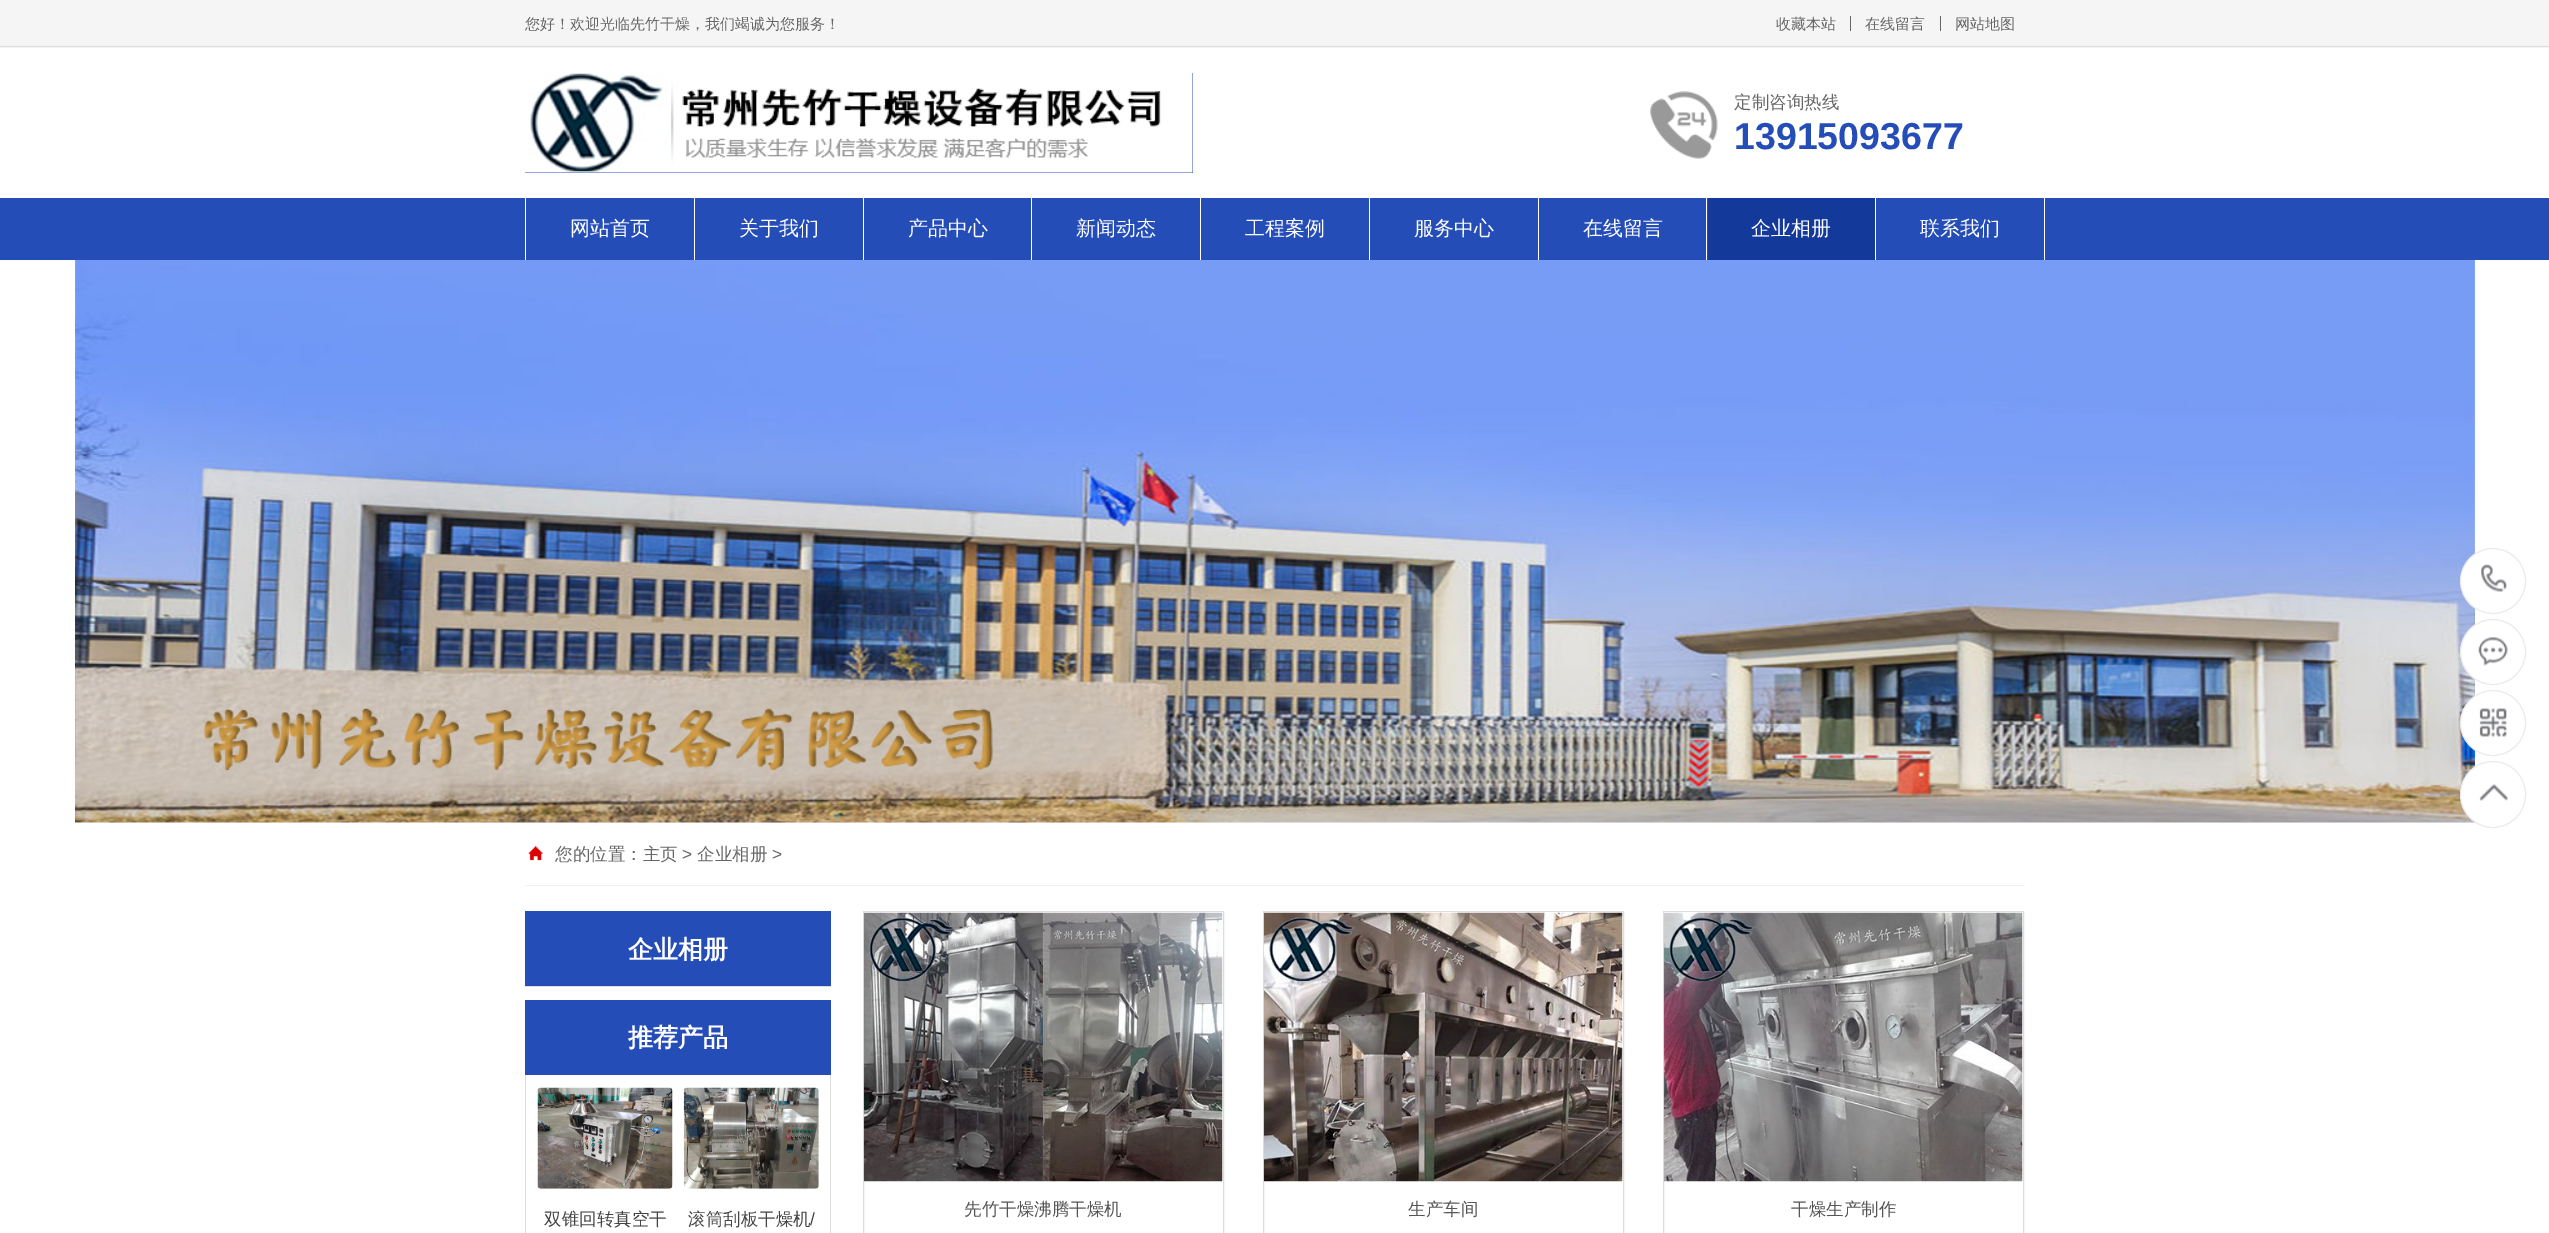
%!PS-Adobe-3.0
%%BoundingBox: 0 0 2549 1233
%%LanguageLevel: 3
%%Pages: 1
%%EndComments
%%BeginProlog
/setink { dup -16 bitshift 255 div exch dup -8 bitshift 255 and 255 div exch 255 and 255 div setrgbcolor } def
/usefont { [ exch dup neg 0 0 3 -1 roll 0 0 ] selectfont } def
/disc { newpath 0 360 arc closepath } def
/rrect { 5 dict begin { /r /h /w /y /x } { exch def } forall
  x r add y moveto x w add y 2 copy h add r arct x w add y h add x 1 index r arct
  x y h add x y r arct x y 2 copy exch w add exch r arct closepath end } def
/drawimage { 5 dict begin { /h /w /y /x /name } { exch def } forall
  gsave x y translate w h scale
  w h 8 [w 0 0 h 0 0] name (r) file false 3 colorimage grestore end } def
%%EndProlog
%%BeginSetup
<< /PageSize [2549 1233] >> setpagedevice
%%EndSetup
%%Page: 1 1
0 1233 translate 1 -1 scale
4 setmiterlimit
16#FFFFFF setink
0 0 2549 1233 rectfill
16#F5F5F5 setink
0 0 2549 48 rectfill
16#DDDDDD setink
0 46 2549 1 rectfill
/WenQuanYiZenHei-Medium 15 usefont
16#666666 setink
525 29 moveto (您好！欢迎光临先竹干燥，我们竭诚为您服务！) show
1776 29 moveto (收藏本站) show
1850 16 1 15 rectfill
1865 29 moveto (在线留言) show
1940 16 1 15 rectfill
1955 29 moveto (网站地图) show
16#244DB7 setink
525 73 668 100 rectfill
(img1.raw) 525 73 668 100 drawimage
(img2.raw) 1650 91 68 68 drawimage
/WenQuanYiZenHei-Medium 17.5 usefont
16#666666 setink
1734 108 moveto (定制咨询热线) show
/LiberationSans-Bold 37.5 usefont
16#244DB7 setink
1734 149 moveto (13915093677) show
[
    [0 198 2549 62 16#244DB7]
    [694 198 1 62 16#FFFFFF]
    [525 198 1 62 16#FFFFFF]
] { aload pop setink rectfill } forall
/WenQuanYiZenHei-Medium 20 usefont
570 235 moveto (网站首页) show
863 198 1 62 rectfill
739 235 moveto (关于我们) show
1031 198 1 62 rectfill
908 235 moveto (产品中心) show
1200 198 1 62 rectfill
1076 235 moveto (新闻动态) show
1369 198 1 62 rectfill
1245 235 moveto (工程案例) show
1538 198 1 62 rectfill
1414 235 moveto (服务中心) show
1706 198 1 62 rectfill
1583 235 moveto (在线留言) show
16#13399A setink
1708 198 167 62 rectfill
16#FFFFFF setink
1875 198 1 62 rectfill
1751 235 moveto (企业相册) show
2044 198 1 62 rectfill
1920 235 moveto (联系我们) show
(img3.raw) 75 260 2400 563 drawimage
2493 581 32.5 disc gsave fill grestore
16#EBEBEB setink
stroke
(img4.raw) 2481 564 26 28 drawimage
16#FFFFFF setink
2493 652 32.5 disc gsave fill grestore
16#EBEBEB setink
stroke
(img5.raw) 2478 636 30 30 drawimage
16#FFFFFF setink
2493 723 32.5 disc gsave fill grestore
16#EBEBEB setink
stroke
(img6.raw) 2479 708 28 29 drawimage
16#FFFFFF setink
2460.5 761.5 65 66 32.5 rrect gsave fill grestore
16#EBEBEB setink
stroke
(img7.raw) 2479 784 29 17 drawimage
16#F1F1F1 setink
525 885 1500 1 rectfill
(img8.raw) 528 846 15 15 drawimage
/WenQuanYiZenHei-Medium 17.5 usefont
16#666666 setink
555 860 moveto (您的位置：主页) show
/LiberationSans-Regular 17.5 usefont
682 860 moveto (>) show
/WenQuanYiZenHei-Medium 17.5 usefont
697 860 moveto (企业相册) show
/LiberationSans-Regular 17.5 usefont
772 860 moveto (>) show
16#244DB7 setink
525 911 306 75 rectfill
/WenQuanYiZenHei-Bold 25 usefont
16#FFFFFF setink
628 958 moveto (企业相册) show
16#DDDDDD setink
525 986 306 1 rectfill
16#244DB7 setink
525 1000 306 75 rectfill
16#FFFFFF setink
628 1046 moveto (推荐产品) show
16#DDDDDD setink
830 1075 1 158 rectfill
525 1075 1 158 rectfill
(img9.raw) 537 1087 136 102 drawimage
/WenQuanYiZenHei-Medium 17.5 usefont
16#434343 setink
544 1225 moveto (双锥回转真空干) show
(img10.raw) 683 1087 136 102 drawimage
688 1225 moveto (滚筒刮板干燥机) show
/LiberationSans-Regular 17.5 usefont
810 1225 moveto (/) show
16#DDDDDD setink
863.5 911.5 360 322 rectstroke
(img11.raw) 863 912 360 270 drawimage
/WenQuanYiZenHei-Medium 17.5 usefont
16#555555 setink
964 1215 moveto (先竹干燥沸腾干燥机) show
16#DDDDDD setink
1263.5 911.5 360 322 rectstroke
(img12.raw) 1263 912 360 270 drawimage
16#555555 setink
1408 1215 moveto (生产车间) show
16#DDDDDD setink
1663.5 911.5 360 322 rectstroke
(img13.raw) 1663 912 360 270 drawimage
16#555555 setink
1791 1215 moveto (干燥生产制作) show
showpage
%%EOF
